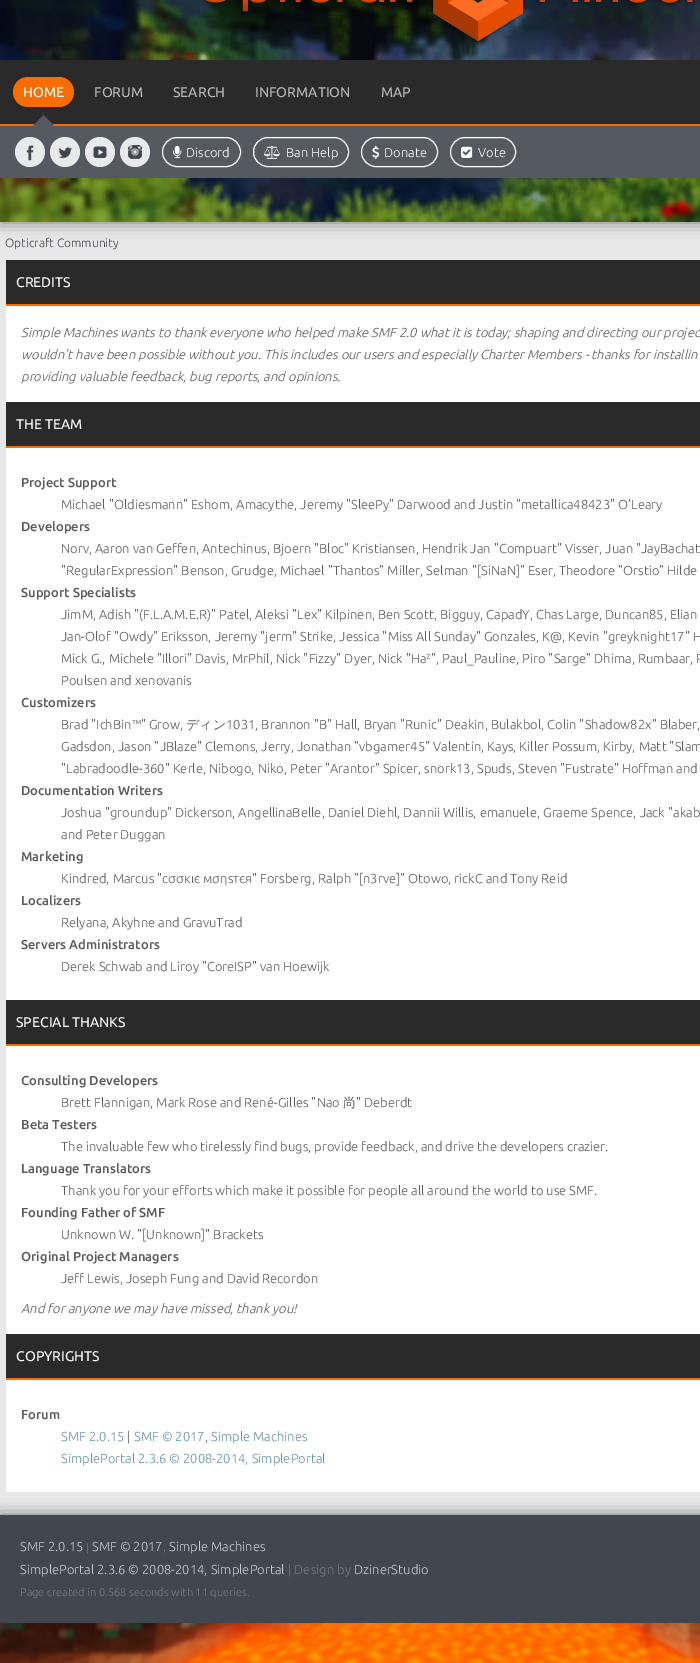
%!PS-Adobe-3.0
%%BoundingBox: 0 0 700 1663
%%LanguageLevel: 3
%%Pages: 1
%%EndComments
%%BeginProlog
/setink { dup -16 bitshift 255 div exch dup -8 bitshift 255 and 255 div exch 255 and 255 div setrgbcolor } def
/usefont { [ exch dup neg 0 0 3 -1 roll 0 0 ] selectfont } def
/setalpha { dup .setfillconstantalpha .setstrokeconstantalpha } def
/disc { newpath 0 360 arc closepath } def
/rrect { 5 dict begin { /r /h /w /y /x } { exch def } forall
  x r add y moveto x w add y 2 copy h add r arct x w add y h add x 1 index r arct
  x y h add x y r arct x y 2 copy exch w add exch r arct closepath end } def
/softshadow { 12 dict begin { /a /b /q /h /w /y /x } { exch def } forall gsave /was 0 def
  9 -2 -9 { dup b mul 4 div /e exch def 1 sub .425 mul 2.718 exch exp 1 add a .99 .min exch div /now exch def
    1 1 now sub 1 was sub div sub setalpha /was now def
    w h .min e 2 mul add 0 gt { x e sub y e sub w e 2 mul add h e 2 mul add
      q e add b .6 mul add w h .min 2 div e add .min 0 .max rrect fill } if } for grestore end } def
/drawimage { 5 dict begin { /h /w /y /x /name } { exch def } forall
  gsave x y translate w h scale
  w h 8 [w 0 0 h 0 0] name (r) file false 3 colorimage grestore end } def
%%EndProlog
%%BeginSetup
<< /PageSize [700 1663] /PageUsesTransparency true >> setpagedevice
%%EndSetup
%%Page: 1 1
0 .pushpdf14devicefilter
0 1663 translate 1 -1 scale
4 setmiterlimit
16#E8E8E8 setink
0 0 700 1663 rectfill
16#000000 setink
0 -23 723 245 0 7.5 0.5 softshadow
(img1.raw) 0 0 700 222 drawimage
(img2.raw) 201 0 494 43 drawimage
16#2A2A2A setink
0 60 700 64 rectfill
16#F86C01 setink
13 77 61 30 15 rrect fill
/Ubuntu-Regular 14 usefont
16#FFFFFF setink
23 97 moveto (HOME) show
16#555960 setink
0 126 700 52 rectfill
16#F86C01 setink
0 124 700 2 rectfill
16#555960 setink
43.5 115 moveto 53.5 125 lineto 43.5 135 lineto 33.5 125 lineto closepath fill
16#BABABA setink
[
    [(FORUM) 94 97]
    [(SEARCH) 173 97]
    [(INFORMATION) 255 97]
    [(MAP) 381 97]
] { aload pop moveto show } forall
16#E9E9E9 setink
30 152 15 disc fill
(img3.raw) 26 145 8 16 drawimage
65 152 15 disc fill
(img4.raw) 58 147 14 12 drawimage
100 152 15 disc fill
(img5.raw) 93 146 14 12 drawimage
135 152 15 disc fill
(img6.raw) 128 145 14 14 drawimage
16#FFFFFF setink
162.5 137.5 78 29 14.5 rrect stroke
(img7.raw) 173 145 9 13 drawimage
/Ubuntu-Light 13 usefont
186 157 moveto (Discord) show
253.5 137.5 95 29 14.5 rrect stroke
(img8.raw) 264 145 16 14 drawimage
286 157 moveto (Ban Help) show
361.5 137.5 76 29 14.5 rrect stroke
(img9.raw) 372 145 8 14 drawimage
384 157 moveto (Donate) show
450.5 137.5 65 29 14.5 rrect stroke
(img10.raw) 461 146 12 12 drawimage
478 157 moveto (Vote) show
/Ubuntu-Light 12 usefont
16#42464E setink
5 247 moveto (Opticraft Community) show
16#2A2A2A setink
6 260 694 44 rectfill
16#F86C01 setink
6 304 694 2 rectfill
/Ubuntu-Regular 14 usefont
16#FFFFFF setink
16 287 moveto (CREDITS) show
6 306 694 96 rectfill
/Ubuntu-LightItalic 13 usefont
16#5B5B5B setink
[
    [(Simple Machines wants to thank everyone who helped make SMF 2.0 what it is today; shaping and directing our projec) 21 337]
    [(wouldn't have been possible without you. This includes our users and especially Charter Members - thanks for installin) 21 359]
    [(providing valuable feedback, bug reports, and opinions.) 21 381]
] { aload pop moveto show } forall
16#2A2A2A setink
6 402 694 44 rectfill
16#F86C01 setink
6 446 694 2 rectfill
/Ubuntu-Regular 14 usefont
16#FFFFFF setink
16 429 moveto (THE TEAM) show
6 448 694 552 rectfill
/Ubuntu-Medium 13 usefont
16#5B5B5B setink
21 487 moveto (Project Support) show
/Ubuntu-Light 13 usefont
61 509 moveto (Michael "Oldiesmann" Eshom, Amacythe, Jeremy "SleePy" Darwood and Justin "metallica48423" O'Leary) show
/Ubuntu-Medium 13 usefont
21 531 moveto (Developers) show
/Ubuntu-Light 13 usefont
61 553 moveto (Norv, Aaron van Geffen, Antechinus, Bjoern "Bloc" Kristiansen, Hendrik Jan "Compuart" Visser, Juan "JayBachat) show
61 575 moveto ("RegularExpression" Benson, Grudge, Michael "Thantos" Miller, Selman "[SiNaN]" Eser, Theodore "Orstio" Hilde) show
/Ubuntu-Medium 13 usefont
21 597 moveto (Support Specialists) show
/Ubuntu-Light 13 usefont
[
    [(JimM, Adish "\(F.L.A.M.E.R\)" Patel, Aleksi "Lex" Kilpinen, Ben Scott, Bigguy, CapadY, Chas Large, Duncan85, Elian) 61 619]
    [(Jan-Olof "Owdy" Eriksson, Jeremy "jerm" Strike, Jessica "Miss All Sunday" Gonzales, K@, Kevin "greyknight17" H) 61 641]
    [(Mick G., Michele "Illori" Davis, MrPhil, Nick "Fizzy" Dyer, Nick "Ha²", Paul_Pauline, Piro "Sarge" Dhima, Rumbaar, P) 61 663]
    [(Poulsen and xenovanis) 61 685]
] { aload pop moveto show } forall
/Ubuntu-Medium 13 usefont
21 707 moveto (Customizers) show
/Ubuntu-Light 13 usefont
61 729 moveto (Brad "IchBin™" Grow,) show
/WenQuanYiZenHei-Medium 13 usefont
186 729 moveto (ディン) show
/Ubuntu-Light 13 usefont
[
    [(1031, Brannon "B" Hall, Bryan "Runic" Deakin, Bulakbol, Colin "Shadow82x" Blaber,) 226 729]
    [(Gadsdon, Jason "JBlaze" Clemons, Jerry, Jonathan "vbgamer45" Valentin, Kays, Killer Possum, Kirby, Matt "Slam) 61 751]
    [("Labradoodle-360" Kerle, Nibogo, Niko, Peter "Arantor" Spicer, snork13, Spuds, Steven "Fustrate" Hoffman and) 61 773]
] { aload pop moveto show } forall
/Ubuntu-Medium 13 usefont
21 795 moveto (Documentation Writers) show
/Ubuntu-Light 13 usefont
61 817 moveto (Joshua "groundup" Dickerson, AngellinaBelle, Daniel Diehl, Dannii Willis, emanuele, Graeme Spence, Jack "akab) show
61 839 moveto (and Peter Duggan) show
/Ubuntu-Medium 13 usefont
21 861 moveto (Marketing) show
/Ubuntu-Light 13 usefont
61 883 moveto (Kindred, Marcus "cσσкιє мσηѕтєя" Forsberg, Ralph "[n3rve]" Otowo, rickC and Tony Reid) show
/Ubuntu-Medium 13 usefont
21 905 moveto (Localizers) show
/Ubuntu-Light 13 usefont
61 927 moveto (Relyana, Akyhne and GravuTrad) show
/Ubuntu-Medium 13 usefont
21 949 moveto (Servers Administrators) show
/Ubuntu-Light 13 usefont
61 971 moveto (Derek Schwab and Liroy "CoreISP" van Hoewijk) show
16#2A2A2A setink
6 1000 694 44 rectfill
16#F86C01 setink
6 1044 694 2 rectfill
/Ubuntu-Regular 14 usefont
16#FFFFFF setink
16 1027 moveto (SPECIAL THANKS) show
6 1046 694 288 rectfill
/Ubuntu-Medium 13 usefont
16#5B5B5B setink
21 1085 moveto (Consulting Developers) show
/Ubuntu-Light 13 usefont
61 1107 moveto (Brett Flannigan, Mark Rose and René-Gilles "Nao) show
/WenQuanYiZenHei-Medium 13 usefont
343 1107 moveto (尚) show
/Ubuntu-Light 13 usefont
356 1107 moveto (" Deberdt) show
/Ubuntu-Medium 13 usefont
21 1129 moveto (Beta Testers) show
/Ubuntu-Light 13 usefont
61 1151 moveto (The invaluable few who tirelessly find bugs, provide feedback, and drive the developers crazier.) show
/Ubuntu-Medium 13 usefont
21 1173 moveto (Language Translators) show
/Ubuntu-Light 13 usefont
61 1195 moveto (Thank you for your efforts which make it possible for people all around the world to use SMF.) show
/Ubuntu-Medium 13 usefont
21 1217 moveto (Founding Father of SMF) show
/Ubuntu-Light 13 usefont
61 1239 moveto (Unknown W. "[Unknown]" Brackets) show
/Ubuntu-Medium 13 usefont
21 1261 moveto (Original Project Managers) show
/Ubuntu-Light 13 usefont
61 1283 moveto (Jeff Lewis, Joseph Fung and David Recordon) show
/Ubuntu-LightItalic 13 usefont
21 1313 moveto (And for anyone we may have missed, thank you!) show
16#2A2A2A setink
6 1334 694 44 rectfill
16#F86C01 setink
6 1378 694 2 rectfill
/Ubuntu-Regular 14 usefont
16#FFFFFF setink
16 1361 moveto (COPYRIGHTS) show
16#000000 setink
0 1515 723 148 0 7.5 0.5 softshadow
16#FFFFFF setink
6 1380 694 112 rectfill
/Ubuntu-Medium 13 usefont
16#5B5B5B setink
21 1419 moveto (Forum) show
/Ubuntu-Light 13 usefont
16#6594A0 setink
61 1441 moveto (SMF 2.0.15) show
16#5B5B5B setink
127 1441 moveto (|) show
16#6594A0 setink
134 1441 moveto (SMF © 2017) show
16#5B5B5B setink
205 1441 moveto (,) show
16#6594A0 setink
211 1441 moveto (Simple Machines) show
61 1463 moveto (SimplePortal 2.3.6 © 2008-2014, SimplePortal) show
(img11.raw) 0 1623 700 40 drawimage
16#42464E setink
0 1515 700 108 rectfill
16#C7CDD2 setink
20 1551 moveto (SMF 2.0.15) show
/LiberationSans-Regular 11.05 usefont
16#767A82 setink
86 1551 moveto (|) show
/Ubuntu-Light 13 usefont
16#C7CDD2 setink
92 1551 moveto (SMF © 2017) show
/LiberationSans-Regular 11.05 usefont
16#767A82 setink
163 1551 moveto (,) show
/Ubuntu-Light 13 usefont
16#C7CDD2 setink
169 1551 moveto (Simple Machines) show
20 1574 moveto (SimplePortal 2.3.6 © 2008-2014, SimplePortal) show
16#767A82 setink
288 1574 moveto (| Design by) show
16#C7CDD2 setink
354 1574 moveto (DzinerStudio) show
/Ubuntu-Light 11.05 usefont
16#767A82 setink
20 1596 moveto (Page created in 0.568 seconds with 11 queries.) show
.poppdf14devicefilter showpage
%%EOF
